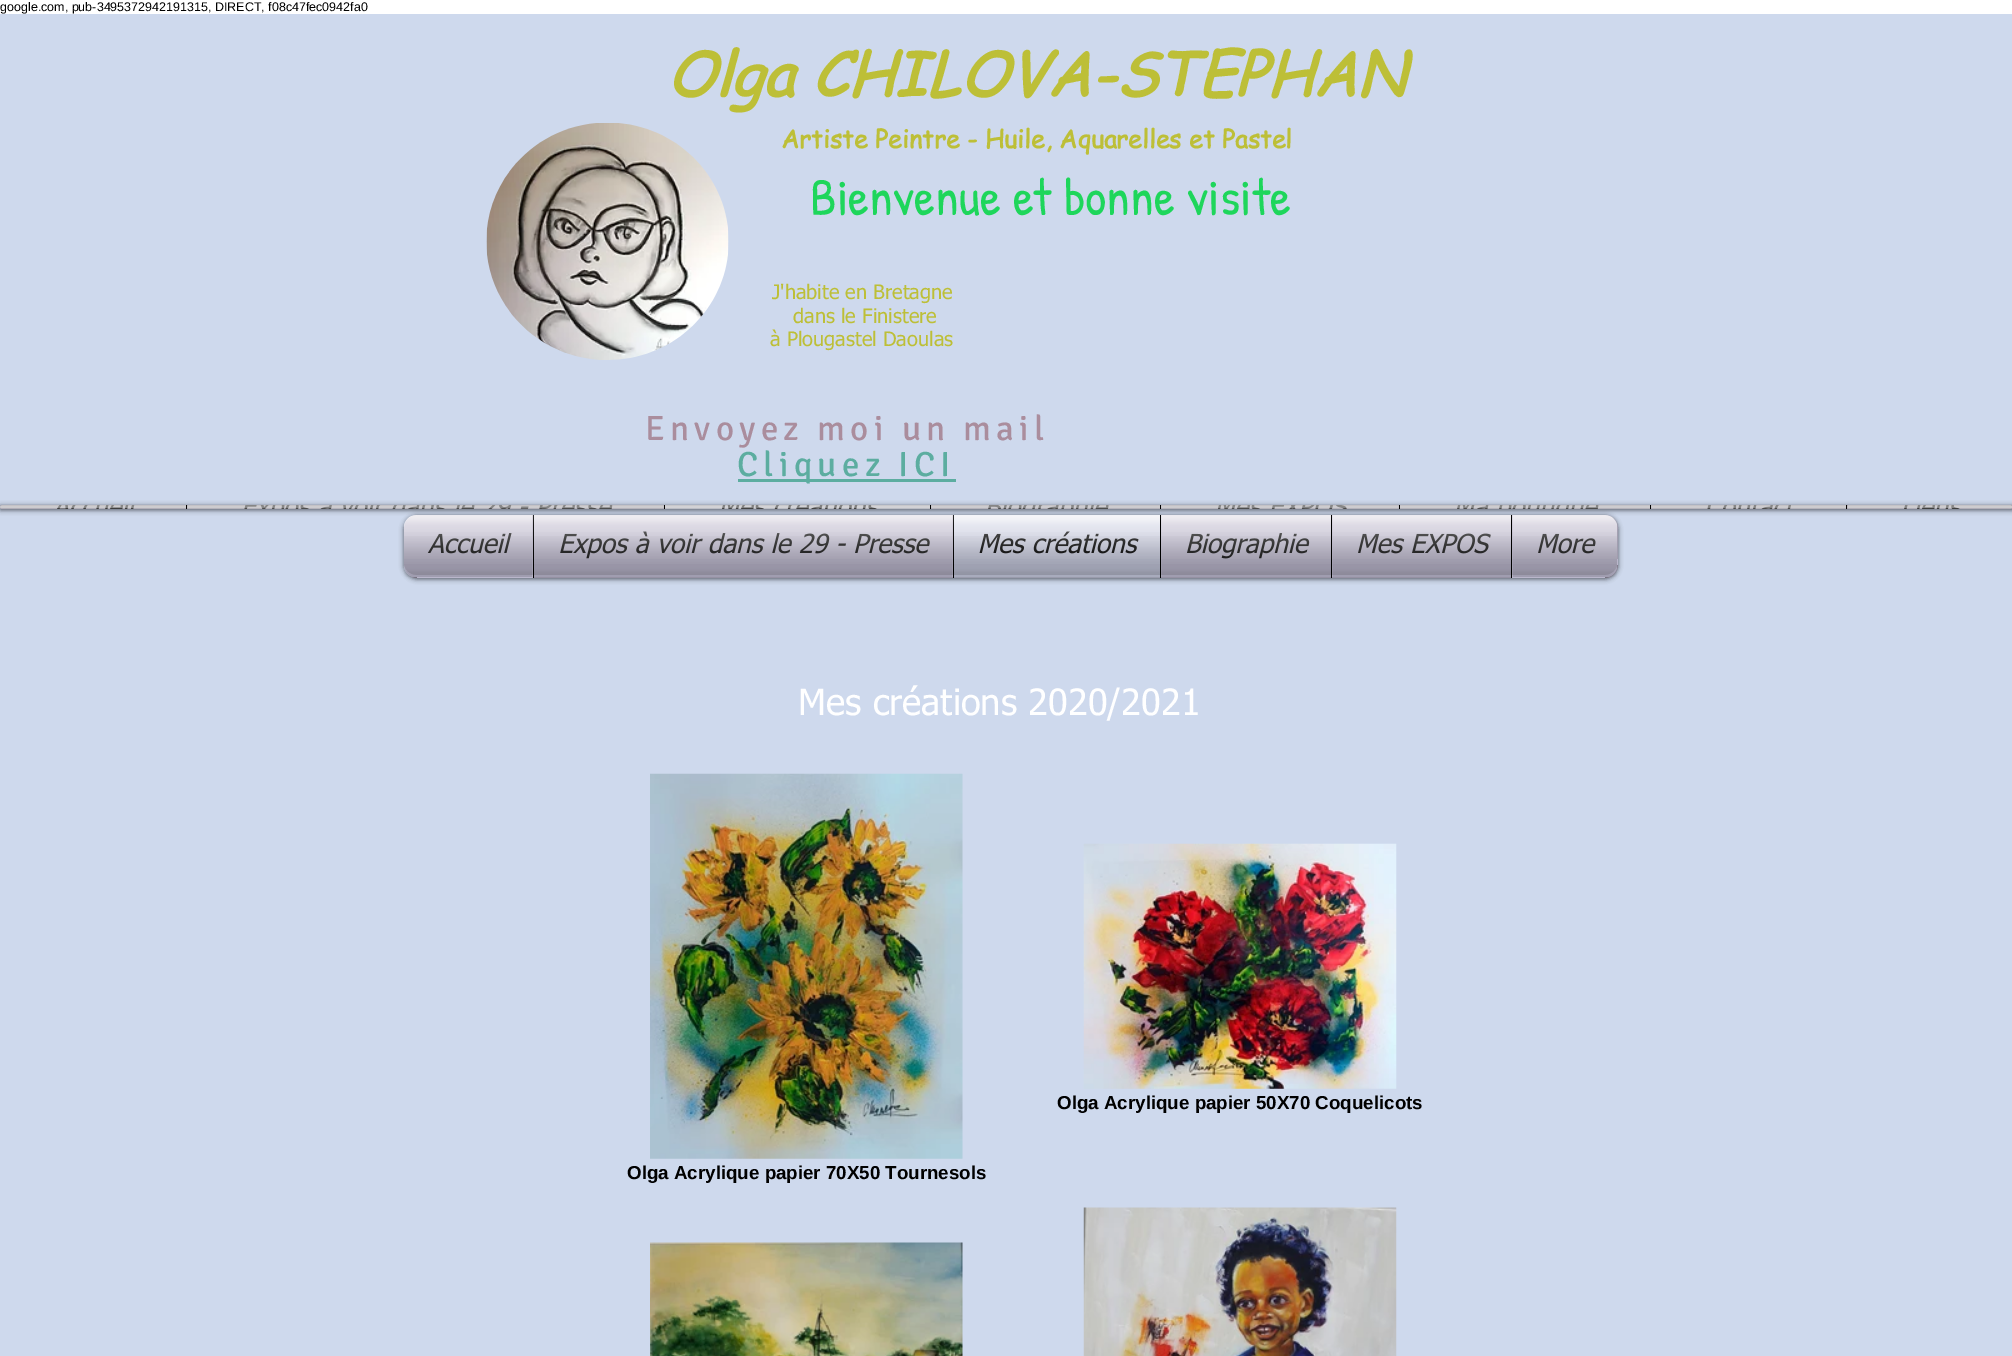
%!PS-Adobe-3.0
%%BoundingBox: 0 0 2012 1356
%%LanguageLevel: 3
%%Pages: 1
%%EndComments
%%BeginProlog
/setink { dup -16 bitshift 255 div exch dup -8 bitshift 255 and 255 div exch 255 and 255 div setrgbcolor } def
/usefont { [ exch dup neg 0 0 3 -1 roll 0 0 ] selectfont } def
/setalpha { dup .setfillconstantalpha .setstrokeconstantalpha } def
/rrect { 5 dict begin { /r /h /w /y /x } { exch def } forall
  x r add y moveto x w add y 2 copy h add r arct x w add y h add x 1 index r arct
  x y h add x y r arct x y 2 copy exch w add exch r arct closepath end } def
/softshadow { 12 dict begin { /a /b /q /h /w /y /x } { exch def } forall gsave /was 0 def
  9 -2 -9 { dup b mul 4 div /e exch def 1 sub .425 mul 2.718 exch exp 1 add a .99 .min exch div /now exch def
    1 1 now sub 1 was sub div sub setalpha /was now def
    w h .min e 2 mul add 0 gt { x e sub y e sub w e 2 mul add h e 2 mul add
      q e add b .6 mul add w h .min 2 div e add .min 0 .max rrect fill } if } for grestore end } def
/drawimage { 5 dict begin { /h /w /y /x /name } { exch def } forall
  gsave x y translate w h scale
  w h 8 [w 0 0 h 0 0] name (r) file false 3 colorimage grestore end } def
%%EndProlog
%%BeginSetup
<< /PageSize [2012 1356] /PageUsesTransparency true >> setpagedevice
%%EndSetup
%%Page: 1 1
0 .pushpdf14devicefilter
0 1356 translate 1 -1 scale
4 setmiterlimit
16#FFFFFF setink
0 0 2012 1356 rectfill
/LiberationSans-Regular 12.5 usefont
16#000000 setink
0 11 moveto (google.com, pub-3495372942191315, DIRECT, f08c47fec0942fa0) show
16#CED9ED setink
0 14 2012 1342 rectfill
/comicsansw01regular-BoldItalic 60 usefont
16#BDBF37 setink
667 96 moveto (Olga CHILOVA-STEPHAN) show
(img1.raw) 486 123 243 237 drawimage
/comicsansw01regular-Bold 25 usefont
781 148 moveto (Artiste Peintre - Huile, Aquarelles et Pastel) show
/PatrickHand-Regular 52.5 usefont
16#1ED65B setink
810 215 moveto (Bienvenue et bonne visite) show
/tahoma-Regular 20 usefont
16#BDBF37 setink
[
    [(J'habite en Bretagne) 772 299]
    [(dans le Finistere) 793 323]
    [(à Plougastel Daoulas) 770 346]
] { aload pop moveto show } forall
/Signika-Regular 35 usefont
16#AA8D9D setink
645 440 moveto 5.25 0 (Envoyez moi un mail) ashow
16#5CADA0 setink
738 479 218 3 rectfill
737 476 moveto 5.25 0 (Cliquez ICI) ashow
gsave
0 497 moveto 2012 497 lineto 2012 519 lineto 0 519 lineto closepath 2 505 moveto 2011 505 lineto 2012 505 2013 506 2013 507 curveto 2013 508 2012 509 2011 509 curveto 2 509 lineto 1 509 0 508 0 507 curveto 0 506 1 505 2 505 curveto closepath eoclip newpath
16#000000 setink
0 506 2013 4 2 2.5 0.6 softshadow
grestore
0.14 setalpha
16#80546D setink
0 505 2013 4 2 rrect fill
1 setalpha
(img2.raw) 0 505 2012 4 drawimage
(img3.raw) 0 505 2012 1 drawimage
0.14 setalpha
2 505 moveto 186 505 lineto 186 509 lineto 2 509 lineto 1 509 0 508 0 507 curveto 0 506 1 505 2 505 curveto closepath fill
1 setalpha
(img4.raw) 0 505 186 4 drawimage
0.14 setalpha
[
    [0 505 186 4 16#000000]
    [186 505 478 4 16#80546D]
] { aload pop setink rectfill } forall
1 setalpha
[
    [186 505 1 4 16#000000]
] { aload pop setink rectfill } forall
/tahoma-Italic 26.25 usefont
16#111111 setink
518 516 moveto (-) show
(img5.raw) 187 505 477 4 drawimage
0.14 setalpha
16#000000 setink
187 505 477 4 rectfill
1 setalpha
664 505 1 4 rectfill
(img6.raw) 665 505 265 4 drawimage
0.14 setalpha
[
    [665 505 265 4 16#000000]
    [930 505 230 4 16#80546D]
] { aload pop setink rectfill } forall
1 setalpha
[
    [930 505 1 4 16#000000]
] { aload pop setink rectfill } forall
(img7.raw) 931 505 229 4 drawimage
0.14 setalpha
[
    [931 505 229 4 16#000000]
    [1160 505 239 4 16#80546D]
] { aload pop setink rectfill } forall
1 setalpha
[
    [1160 505 1 4 16#000000]
] { aload pop setink rectfill } forall
(img8.raw) 1161 505 238 4 drawimage
0.14 setalpha
[
    [1161 505 238 4 16#000000]
    [1399 505 251 4 16#80546D]
] { aload pop setink rectfill } forall
1 setalpha
[
    [1399 505 1 4 16#000000]
] { aload pop setink rectfill } forall
(img9.raw) 1400 505 250 4 drawimage
0.14 setalpha
[
    [1400 505 250 4 16#000000]
    [1650 505 196 4 16#80546D]
] { aload pop setink rectfill } forall
1 setalpha
[
    [1650 505 1 4 16#000000]
] { aload pop setink rectfill } forall
(img10.raw) 1651 505 195 4 drawimage
0.14 setalpha
[
    [1651 505 196 4 16#000000]
    [1846 505 166 4 16#80546D]
] { aload pop setink rectfill } forall
1 setalpha
[
    [1846 505 1 4 16#000000]
] { aload pop setink rectfill } forall
(img11.raw) 1847 505 165 4 drawimage
0.14 setalpha
1847 505 165 4 rectfill
gsave
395 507 moveto 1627 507 lineto 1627 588 lineto 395 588 lineto closepath 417 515 moveto 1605 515 lineto 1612 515 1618 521 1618 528 curveto 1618 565 lineto 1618 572 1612 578 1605 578 curveto 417 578 lineto 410 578 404 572 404 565 curveto 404 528 lineto 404 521 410 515 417 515 curveto closepath eoclip newpath
1 setalpha
404 516 1214 63 13 2.5 0.6 softshadow
grestore
16#80546D setink
404 515 1214 63 13 rrect fill
1 setalpha
(img12.raw) 404 515 1214 44 drawimage
(img13.raw) 404 533 1213 42 drawimage
0.14 setalpha
417 515 moveto 533 515 lineto 533 578 lineto 417 578 lineto 410 578 404 572 404 565 curveto 404 528 lineto 404 521 410 515 417 515 curveto closepath fill
1 setalpha
16#111111 setink
428 553 moveto (Accueil) show
(img14.raw) 404 515 129 49 drawimage
(img15.raw) 404 536 129 41 drawimage
0.14 setalpha
16#80546D setink
534 515 419 63 rectfill
1 setalpha
16#000000 setink
533 515 1 63 rectfill
16#111111 setink
558 553 moveto (Expos à voir dans le 29 - Presse) show
(img16.raw) 533 515 420 49 drawimage
(img17.raw) 534 536 419 42 drawimage
16#000000 setink
953 515 1 63 rectfill
978 553 moveto (Mes créations) show
(img18.raw) 953 515 207 49 drawimage
(img19.raw) 954 536 206 42 drawimage
0.14 setalpha
16#80546D setink
1161 515 170 63 rectfill
1 setalpha
16#000000 setink
1160 515 1 63 rectfill
16#111111 setink
1185 553 moveto (Biographie) show
(img20.raw) 1161 515 170 49 drawimage
(img21.raw) 1161 536 170 42 drawimage
0.14 setalpha
16#80546D setink
1332 515 179 63 rectfill
1 setalpha
16#000000 setink
1331 515 1 63 rectfill
16#111111 setink
1356 553 moveto (Mes EXPOS) show
(img22.raw) 1332 515 179 49 drawimage
(img23.raw) 1332 536 179 42 drawimage
0.14 setalpha
16#80546D setink
1511 515 moveto 1605 515 lineto 1612 515 1618 521 1618 528 curveto 1618 565 lineto 1618 572 1612 578 1605 578 curveto 1511 578 lineto closepath fill
1 setalpha
16#000000 setink
1511 515 1 63 rectfill
16#111111 setink
1536 553 moveto (More) show
(img24.raw) 1512 515 105 49 drawimage
(img25.raw) 1512 536 105 41 drawimage
/tahoma-Regular 36.25 usefont
16#FFFFFF setink
798 715 moveto (Mes créations 2020/2021) show
(img26.raw) 1083 843 314 246 drawimage
/LiberationSans-Bold 18.75 usefont
16#000000 setink
1057 1109 moveto (Olga Acrylique papier 50X70 Coquelicots) show
(img27.raw) 650 773 313 386 drawimage
627 1179 moveto (Olga Acrylique papier 70X50 Tournesols) show
(img28.raw) 650 1242 313 114 drawimage
(img29.raw) 1083 1207 314 149 drawimage
.poppdf14devicefilter showpage
%%EOF
